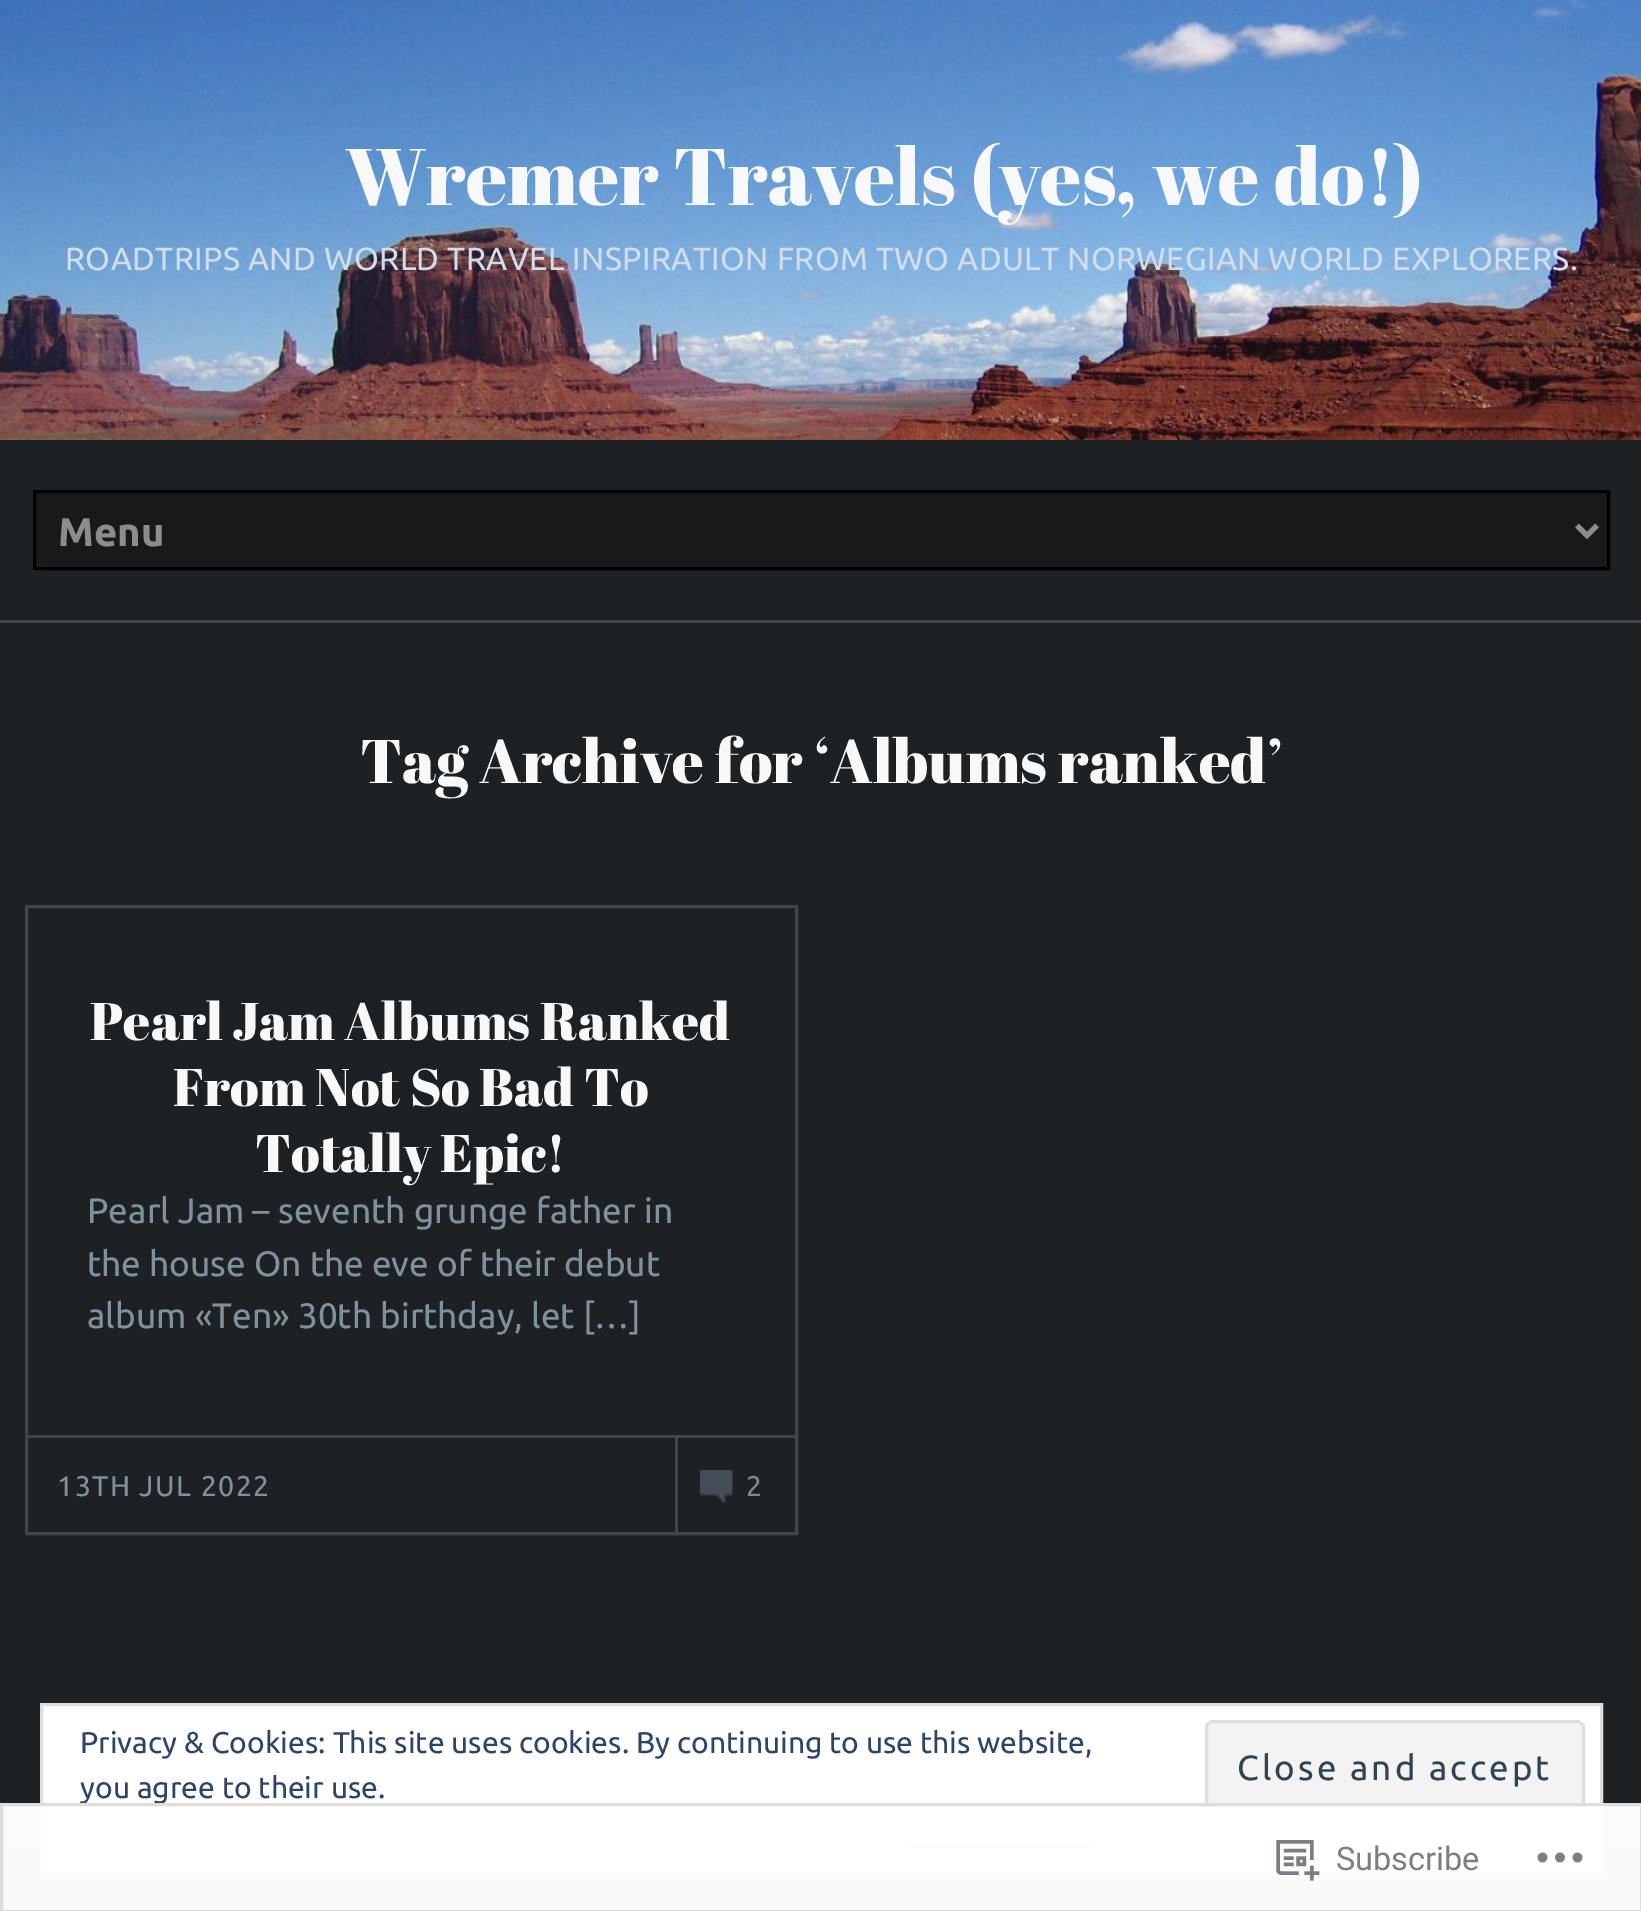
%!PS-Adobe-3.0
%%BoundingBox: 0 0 1641 1911
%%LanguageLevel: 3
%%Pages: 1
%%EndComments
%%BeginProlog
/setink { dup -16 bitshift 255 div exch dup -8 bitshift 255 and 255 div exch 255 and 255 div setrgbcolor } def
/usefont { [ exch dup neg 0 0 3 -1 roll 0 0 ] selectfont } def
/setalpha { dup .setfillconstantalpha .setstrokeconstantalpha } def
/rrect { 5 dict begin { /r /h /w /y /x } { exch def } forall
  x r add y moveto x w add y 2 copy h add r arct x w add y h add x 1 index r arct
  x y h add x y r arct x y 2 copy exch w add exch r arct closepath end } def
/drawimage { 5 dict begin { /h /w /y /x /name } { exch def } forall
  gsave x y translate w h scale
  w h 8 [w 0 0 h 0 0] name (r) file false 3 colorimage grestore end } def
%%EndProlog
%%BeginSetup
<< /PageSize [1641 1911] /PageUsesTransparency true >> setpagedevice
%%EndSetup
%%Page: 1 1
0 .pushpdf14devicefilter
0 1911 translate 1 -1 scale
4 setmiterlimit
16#1E2123 setink
0 0 1641 1911 rectfill
(img1.raw) 0 0 1641 440 drawimage
/AbrilFatface-Regular 80 usefont
16#F6F8FA setink
345 205 moveto (Wremer Travels \(yes, we do!\)) show
/Ubuntu-Regular 32 usefont
16#D1DDEB setink
65 270 moveto 0.32 0 (ROADTRIPS AND WORLD TRAVEL INSPIRATION FROM TWO ADULT NORWEGIAN WORLD EXPLORERS.) ashow
16#3E454E setink
0 620 1641 3 rectfill
16#17191A setink
34.5 491.5 moveto 1608.5 491.5 lineto 1608.5 568.5 lineto 34.5 568.5 lineto closepath gsave fill grestore
16#000000 setink
3 setlinewidth
stroke
16#8B8C8D setink
5 setlinewidth
1577 525.5 moveto 1587 535.5 lineto 1597 525.5 lineto stroke
/Ubuntu-Bold 40 usefont
58 546 moveto (Menu) show
/AbrilFatface-Regular 61.6 usefont
16#F6F8FA setink
360 783 moveto (Tag Archive for ‘Albums ranked’) show
16#3E454E setink
3 setlinewidth
26.5 906.5 770 627 rectstroke
/AbrilFatface-Regular 52.75 usefont
16#F6F8FA setink
[
    [(Pearl Jam Albums Ranked) 90 1040]
    [(From Not So Bad To) 173 1106]
    [(Totally Epic!) 255 1172]
] { aload pop moveto show } forall
/Ubuntu-Regular 35.25 usefont
16#7F919D setink
[
    [(Pearl Jam – seventh grunge father in) 87 1223]
    [(the house On the eve of their debut) 87 1276]
    [(album «Ten» 30th birthday, let […]) 87 1328]
] { aload pop moveto show } forall
16#3E454E setink
28 1435 767 3 rectfill
/Ubuntu-Regular 28.5 usefont
16#7F919D setink
57 1496 moveto 1.5 0 (13TH JUL 2022) ashow
(img2.raw) 700 1470 33 33 drawimage
16#3E454E setink
675 1438 3 95 rectfill
16#798A95 setink
746 1496 moveto 1.5 0 (2) ashow
16#171719 setink
0 1848 1641 63 rectfill
16#FFFFFF setink
41.5 1704.5 moveto 1601.5 1704.5 lineto 1601.5 1871.5 lineto 41.5 1871.5 lineto closepath gsave fill grestore
16#DEDEDE setink
stroke
/Ubuntu-Regular 30 usefont
16#2E4467 setink
80 1753 moveto (Privacy & Cookies: This site uses cookies. By continuing to use this website,) show
80 1798 moveto (you agree to their use.) show
16#F3F3F3 setink
1206.5 1721.5 377 95 6.5 rrect gsave fill grestore
16#DEDEDE setink
stroke
/Ubuntu-Regular 35 usefont
16#2E4453 setink
1237 1780 moveto 3 0 (Close and accept) ashow
16#2E4467 setink
908 1845 182 3 rectfill
0.98 setalpha
16#FFFFFF setink
0 1803 1641 108 rectfill
16#DCDCDE setink
1.5 1804.5 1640 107 rectstroke
1 setalpha
(img3.raw) 1276 1840 44 41 drawimage
/Roboto-Regular 32.5 usefont
16#7B7F84 setink
1336 1870 moveto (Subscribe) show
(img4.raw) 1537 1852 46 11 drawimage
.poppdf14devicefilter showpage
%%EOF
